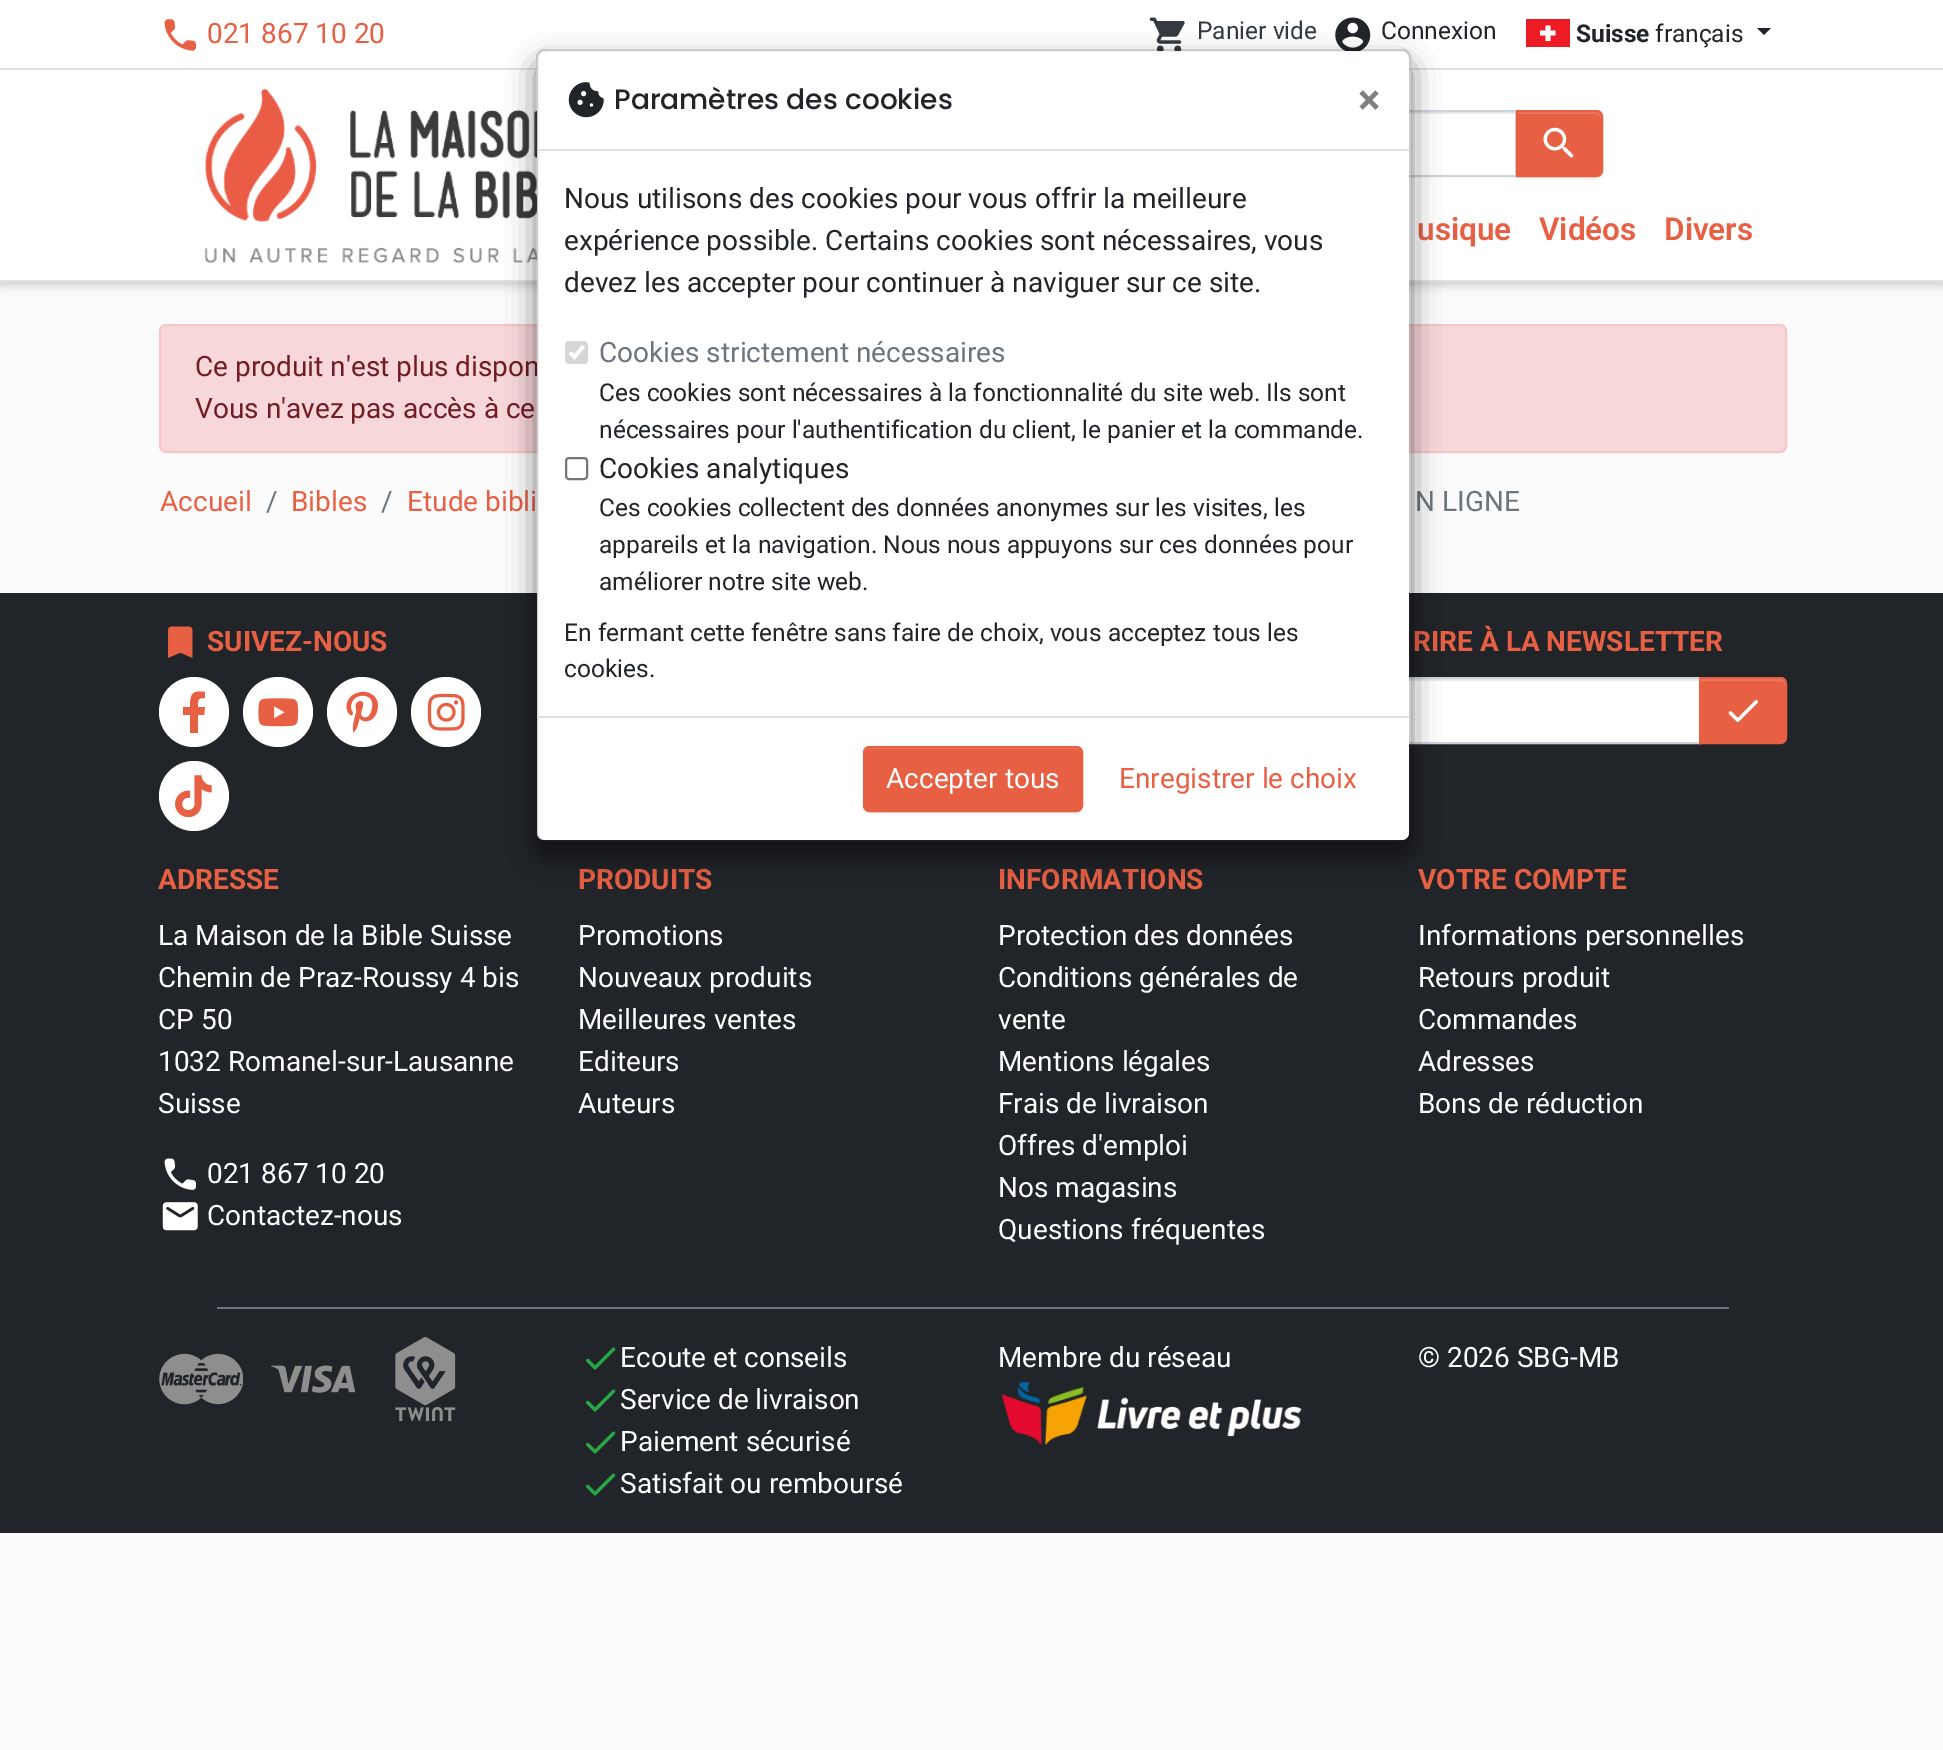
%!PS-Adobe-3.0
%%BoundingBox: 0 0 1943 1750
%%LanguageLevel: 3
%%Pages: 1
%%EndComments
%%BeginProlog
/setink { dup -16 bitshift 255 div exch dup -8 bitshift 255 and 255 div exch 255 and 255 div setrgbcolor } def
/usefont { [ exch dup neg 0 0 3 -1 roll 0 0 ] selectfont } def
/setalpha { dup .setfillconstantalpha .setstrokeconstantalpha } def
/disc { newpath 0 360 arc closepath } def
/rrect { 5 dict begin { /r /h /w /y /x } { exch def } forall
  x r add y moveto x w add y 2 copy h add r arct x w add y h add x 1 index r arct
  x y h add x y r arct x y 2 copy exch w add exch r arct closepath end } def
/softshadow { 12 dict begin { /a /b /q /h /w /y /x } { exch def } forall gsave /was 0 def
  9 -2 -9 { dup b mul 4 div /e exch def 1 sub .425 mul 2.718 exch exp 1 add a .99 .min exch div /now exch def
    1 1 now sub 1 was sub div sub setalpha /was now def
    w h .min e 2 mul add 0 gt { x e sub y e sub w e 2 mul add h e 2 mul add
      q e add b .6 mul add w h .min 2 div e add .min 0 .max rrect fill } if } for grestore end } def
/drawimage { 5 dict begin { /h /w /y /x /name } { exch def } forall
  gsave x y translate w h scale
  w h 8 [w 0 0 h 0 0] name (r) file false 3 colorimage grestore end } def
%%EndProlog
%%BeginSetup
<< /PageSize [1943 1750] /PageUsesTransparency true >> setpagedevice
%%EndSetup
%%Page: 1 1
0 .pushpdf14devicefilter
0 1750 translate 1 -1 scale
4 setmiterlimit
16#FBFBFB setink
0 0 1943 1750 rectfill
16#000000 setink
0 4 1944 281 0 5 0.2 softshadow
[
    [0 0 1943 280 16#FFFFFF]
    [0 280 1943 2 16#DEE2E6]
    [0 68 1943 2 16#DEE2E6]
] { aload pop setink rectfill } forall
(img1.raw) 164 19 32 32 drawimage
/Roboto-Regular 28 usefont
16#E86044 setink
207 43 moveto (021 867 10 20) show
(img2.raw) 1149 17 36 34 drawimage
/Roboto-Regular 24.5 usefont
16#343A40 setink
1197 39 moveto (Panier vide) show
(img3.raw) 1335 17 36 34 drawimage
16#212529 setink
1381 39 moveto (Connexion) show
16#EC1B24 setink
1526 19 44 28 rectfill
16#FFFFFF setink
4.7 setlinewidth
1548 25.5 moveto 1548 41 lineto 1555.5 33 moveto 1540 33 lineto stroke
/Roboto-Bold 24.5 usefont
16#212529 setink
1576 42 moveto (Suisse) show
/Roboto-Regular 24.5 usefont
1655 42 moveto (français) show
1757 28 moveto 1771 28 lineto 1764 35 lineto closepath fill
(img4.raw) 204 88 333 176 drawimage
16#ECECEC setink
822 114 moveto 1516 114 lineto 1516 112 lineto 822 112 lineto 819 112 817 114 817 117 curveto 817 119 lineto 817 116 820 114 822 114 curveto closepath fill
16#CED4DA setink
2 setlinewidth
817 111 699 65 rectstroke
16#000000 setink
1516 112 87 67 7 1 0.07 softshadow
16#E86044 setink
1516 110 moveto 1596 110 lineto 1600 110 1603 113 1603 117 curveto 1603 170 lineto 1603 174 1600 177 1596 177 curveto 1516 177 lineto closepath fill
16#EB7860 setink
1517 114 moveto 1596 114 lineto 1599 114 1601 116 1601 119 curveto 1601 117 lineto 1601 114 1599 112 1596 112 curveto 1517 112 lineto closepath fill
16#E86044 setink
1517 111 moveto 1596 111 lineto 1599.5 111 1602 113.5 1602 117 curveto 1602 170 lineto 1602 173.5 1599.5 176 1596 176 curveto 1517 176 lineto closepath stroke
(img5.raw) 1543 127 31 31 drawimage
/Roboto-SemiBold 31.5 usefont
[
    [(usique) 1417 240]
    [(Vidéos) 1539 240]
    [(Divers) 1664 240]
] { aload pop moveto show } forall
16#F8D7DA setink
160 325 1626 127 6 rrect gsave fill grestore
16#F5C6CB setink
stroke
/Roboto-Regular 28 usefont
16#721C24 setink
195 376 moveto (Ce produit n'est plus dispon) show
195 418 moveto (Vous n'avez pas accès à ce) show
16#E86044 setink
160 511 moveto (Accueil) show
16#6C757D setink
266 511 moveto (/) show
16#E86044 setink
291 511 moveto (Bibles) show
16#6C757D setink
381 511 moveto (/) show
16#E86044 setink
407 511 moveto (Etude bibli) show
16#6C757D setink
1415 511 moveto (N LIGNE) show
16#212529 setink
0 593 1943 940 rectfill
(img6.raw) 168 626 25 32 drawimage
/Roboto-Bold 28 usefont
16#E86044 setink
207 651 moveto (SUIVEZ-NOUS) show
16#FFFFFF setink
194 712 35 disc fill
16#E86044 setink
204 715 moveto 205 707 lineto 198 707 lineto 198 700 197 698 205 698 curveto 205 692 lineto 192 690 190 694 190 707 curveto 183 707 lineto 183 715 lineto 190 715 lineto 190 733 lineto 198 733 lineto 198 715 lineto closepath fill
16#FFFFFF setink
278 712 35 disc fill
(img7.raw) 258 698 41 29 drawimage
362 712 35 disc fill
(img8.raw) 346 691 32 42 drawimage
446 712 35 disc fill
(img9.raw) 427 693 38 38 drawimage
194 796 35 disc fill
(img10.raw) 175 775 37 42 drawimage
16#E86044 setink
1413 651 moveto (RIRE À LA NEWSLETTER) show
16#FFFFFF setink
1409 679 290 63 rectfill
0.07 setalpha
16#000000 setink
1286 681 moveto 1699 681 lineto 1699 679 lineto 1286 679 lineto 1282 679 1281 683 1281 686 curveto 1281 683 1283 681 1286 681 curveto closepath fill
1 setalpha
16#CED4DA setink
1280 678 420 65 rectstroke
16#000000 setink
1699 679 88 67 7 1 0.07 softshadow
16#E86044 setink
1699 677 moveto 1780 677 lineto 1784 677 1787 680 1787 684 curveto 1787 737 lineto 1787 741 1784 744 1780 744 curveto 1699 744 lineto closepath fill
16#EB7860 setink
1701 681 moveto 1780 681 lineto 1783 681 1785 683 1785 686 curveto 1785 684 lineto 1785 681 1783 679 1780 679 curveto 1701 679 lineto closepath fill
16#E86044 setink
1700 678 moveto 1780 678 lineto 1783.5 678 1786 680.5 1786 684 curveto 1786 737 lineto 1786 740.5 1783.5 743 1780 743 curveto 1700 743 lineto closepath stroke
(img11.raw) 1728 700 30 22 drawimage
158 889 moveto (ADRESSE) show
/Roboto-Regular 28 usefont
16#FFFFFF setink
[
    [(La Maison de la Bible Suisse) 158 945]
    [(Chemin de Praz-Roussy 4 bis) 158 987]
    [(CP 50) 158 1029]
    [(1032 Romanel-sur-Lausanne) 158 1071]
    [(Suisse) 158 1113]
] { aload pop moveto show } forall
(img12.raw) 164 1158 32 32 drawimage
207 1183 moveto (021 867 10 20) show
(img13.raw) 162 1202 36 29 drawimage
207 1225 moveto (Contactez-nous) show
/Roboto-Bold 28 usefont
16#E86044 setink
578 889 moveto (PRODUITS) show
/Roboto-Regular 28 usefont
16#FFFFFF setink
[
    [(Promotions) 578 945]
    [(Nouveaux produits) 578 987]
    [(Meilleures ventes) 578 1029]
    [(Editeurs) 578 1071]
    [(Auteurs) 578 1113]
] { aload pop moveto show } forall
/Roboto-Bold 28 usefont
16#E86044 setink
998 889 moveto (INFORMATIONS) show
/Roboto-Regular 28 usefont
16#FFFFFF setink
[
    [(Protection des données) 998 945]
    [(Conditions générales de) 998 987]
    [(vente) 998 1029]
    [(Mentions légales) 998 1071]
    [(Frais de livraison) 998 1113]
    [(Offres d'emploi) 998 1155]
    [(Nos magasins) 998 1197]
    [(Questions fréquentes) 998 1239]
] { aload pop moveto show } forall
/Roboto-Bold 28 usefont
16#E86044 setink
1418 889 moveto (VOTRE COMPTE) show
/Roboto-Regular 28 usefont
16#FFFFFF setink
[
    [(Informations personnelles) 1418 945]
    [(Retours produit) 1418 987]
    [(Commandes) 1418 1029]
    [(Adresses) 1418 1071]
    [(Bons de réduction) 1418 1113]
] { aload pop moveto show } forall
16#6C757D setink
217 1307 1512 2 rectfill
(img14.raw) 159 1353 84 52 drawimage
(img15.raw) 271 1365 84 28 drawimage
(img16.raw) 395 1337 61 84 drawimage
(img17.raw) 586 1347 30 23 drawimage
16#FFFFFF setink
620 1367 moveto (Ecoute et conseils) show
(img17.raw) 586 1389 30 23 drawimage
620 1409 moveto (Service de livraison) show
(img17.raw) 586 1431 30 23 drawimage
620 1451 moveto (Paiement sécurisé) show
(img17.raw) 586 1473 30 23 drawimage
620 1493 moveto (Satisfait ou remboursé) show
998 1367 moveto (Membre du réseau) show
(img18.raw) 1001 1381 301 64 drawimage
1418 1367 moveto (© 2026 SBG-MB) show
gsave
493 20 moveto 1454 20 lineto 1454 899 lineto 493 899 lineto closepath 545 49 moveto 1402 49 lineto 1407 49 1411 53 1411 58 curveto 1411 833 lineto 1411 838 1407 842 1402 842 curveto 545 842 lineto 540 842 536 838 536 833 curveto 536 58 lineto 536 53 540 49 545 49 curveto closepath eoclip newpath
16#000000 setink
536 63 875 793 9 14 0.5 softshadow
grestore
537 51 872 789 7 rrect fill
0.2 setalpha
16#000000 setink
537 50 873 791 8 rrect stroke
1 setalpha
16#DEE2E6 setink
537 149 872 2 rectfill
(img19.raw) 568 82 36 36 drawimage
/Poppins-Medium 28 usefont
16#212529 setink
614 109 moveto (Paramètres des cookies) show
/Roboto-Bold 42 usefont
16#808080 setink
1358 114 moveto (×) show
/Roboto-Regular 28 usefont
16#212529 setink
[
    [(Nous utilisons des cookies pour vous offrir la meilleure) 564 208]
    [(expérience possible. Certains cookies sont nécessaires, vous) 564 250]
    [(devez les accepter pour continuer à naviguer sur ce site.) 564 292]
] { aload pop moveto show } forall
16#D6D6D6 setink
565 341 23 23 4 rrect fill
16#FFFFFF setink
3.6 setlinewidth
570 352.5 moveto 574.5 357 lineto 583.5 346 lineto stroke
16#6C757D setink
599 362 moveto (Cookies strictement nécessaires) show
/Roboto-Regular 24.5 usefont
16#212529 setink
599 401 moveto (Ces cookies sont nécessaires à la fonctionnalité du site web. Ils sont) show
599 438 moveto (nécessaires pour l'authentification du client, le panier et la commande.) show
16#767676 setink
2 setlinewidth
566 458 21 21 3 rrect stroke
/Roboto-Regular 28 usefont
16#212529 setink
599 478 moveto (Cookies analytiques) show
/Roboto-Regular 24.5 usefont
[
    [(Ces cookies collectent des données anonymes sur les visites, les) 599 516]
    [(appareils et la navigation. Nous nous appuyons sur ces données pour) 599 553]
    [(améliorer notre site web.) 599 590]
    [(En fermant cette fenêtre sans faire de choix, vous acceptez tous les) 564 641]
    [(cookies.) 564 677]
] { aload pop moveto show } forall
16#DEE2E6 setink
537 716 872 2 rectfill
16#000000 setink
863 747 220 67 7 1 0.07 softshadow
16#E86044 setink
863 746 220 66 7 rrect fill
16#EB7860 setink
870 749 moveto 1076 749 lineto 1079 749 1082 751 1082 754 curveto 1082 752 lineto 1082 749 1080 747 1077 747 curveto 870 747 lineto 868 747 865 749 865 751 curveto 866 750 868 749 870 749 curveto closepath fill
16#E86044 setink
864 747 218 64 6 rrect stroke
/Roboto-Regular 28 usefont
16#FFFFFF setink
886 788 moveto (Accepter tous) show
16#E86044 setink
1119 788 moveto (Enregistrer le choix) show
.poppdf14devicefilter showpage
%%EOF
